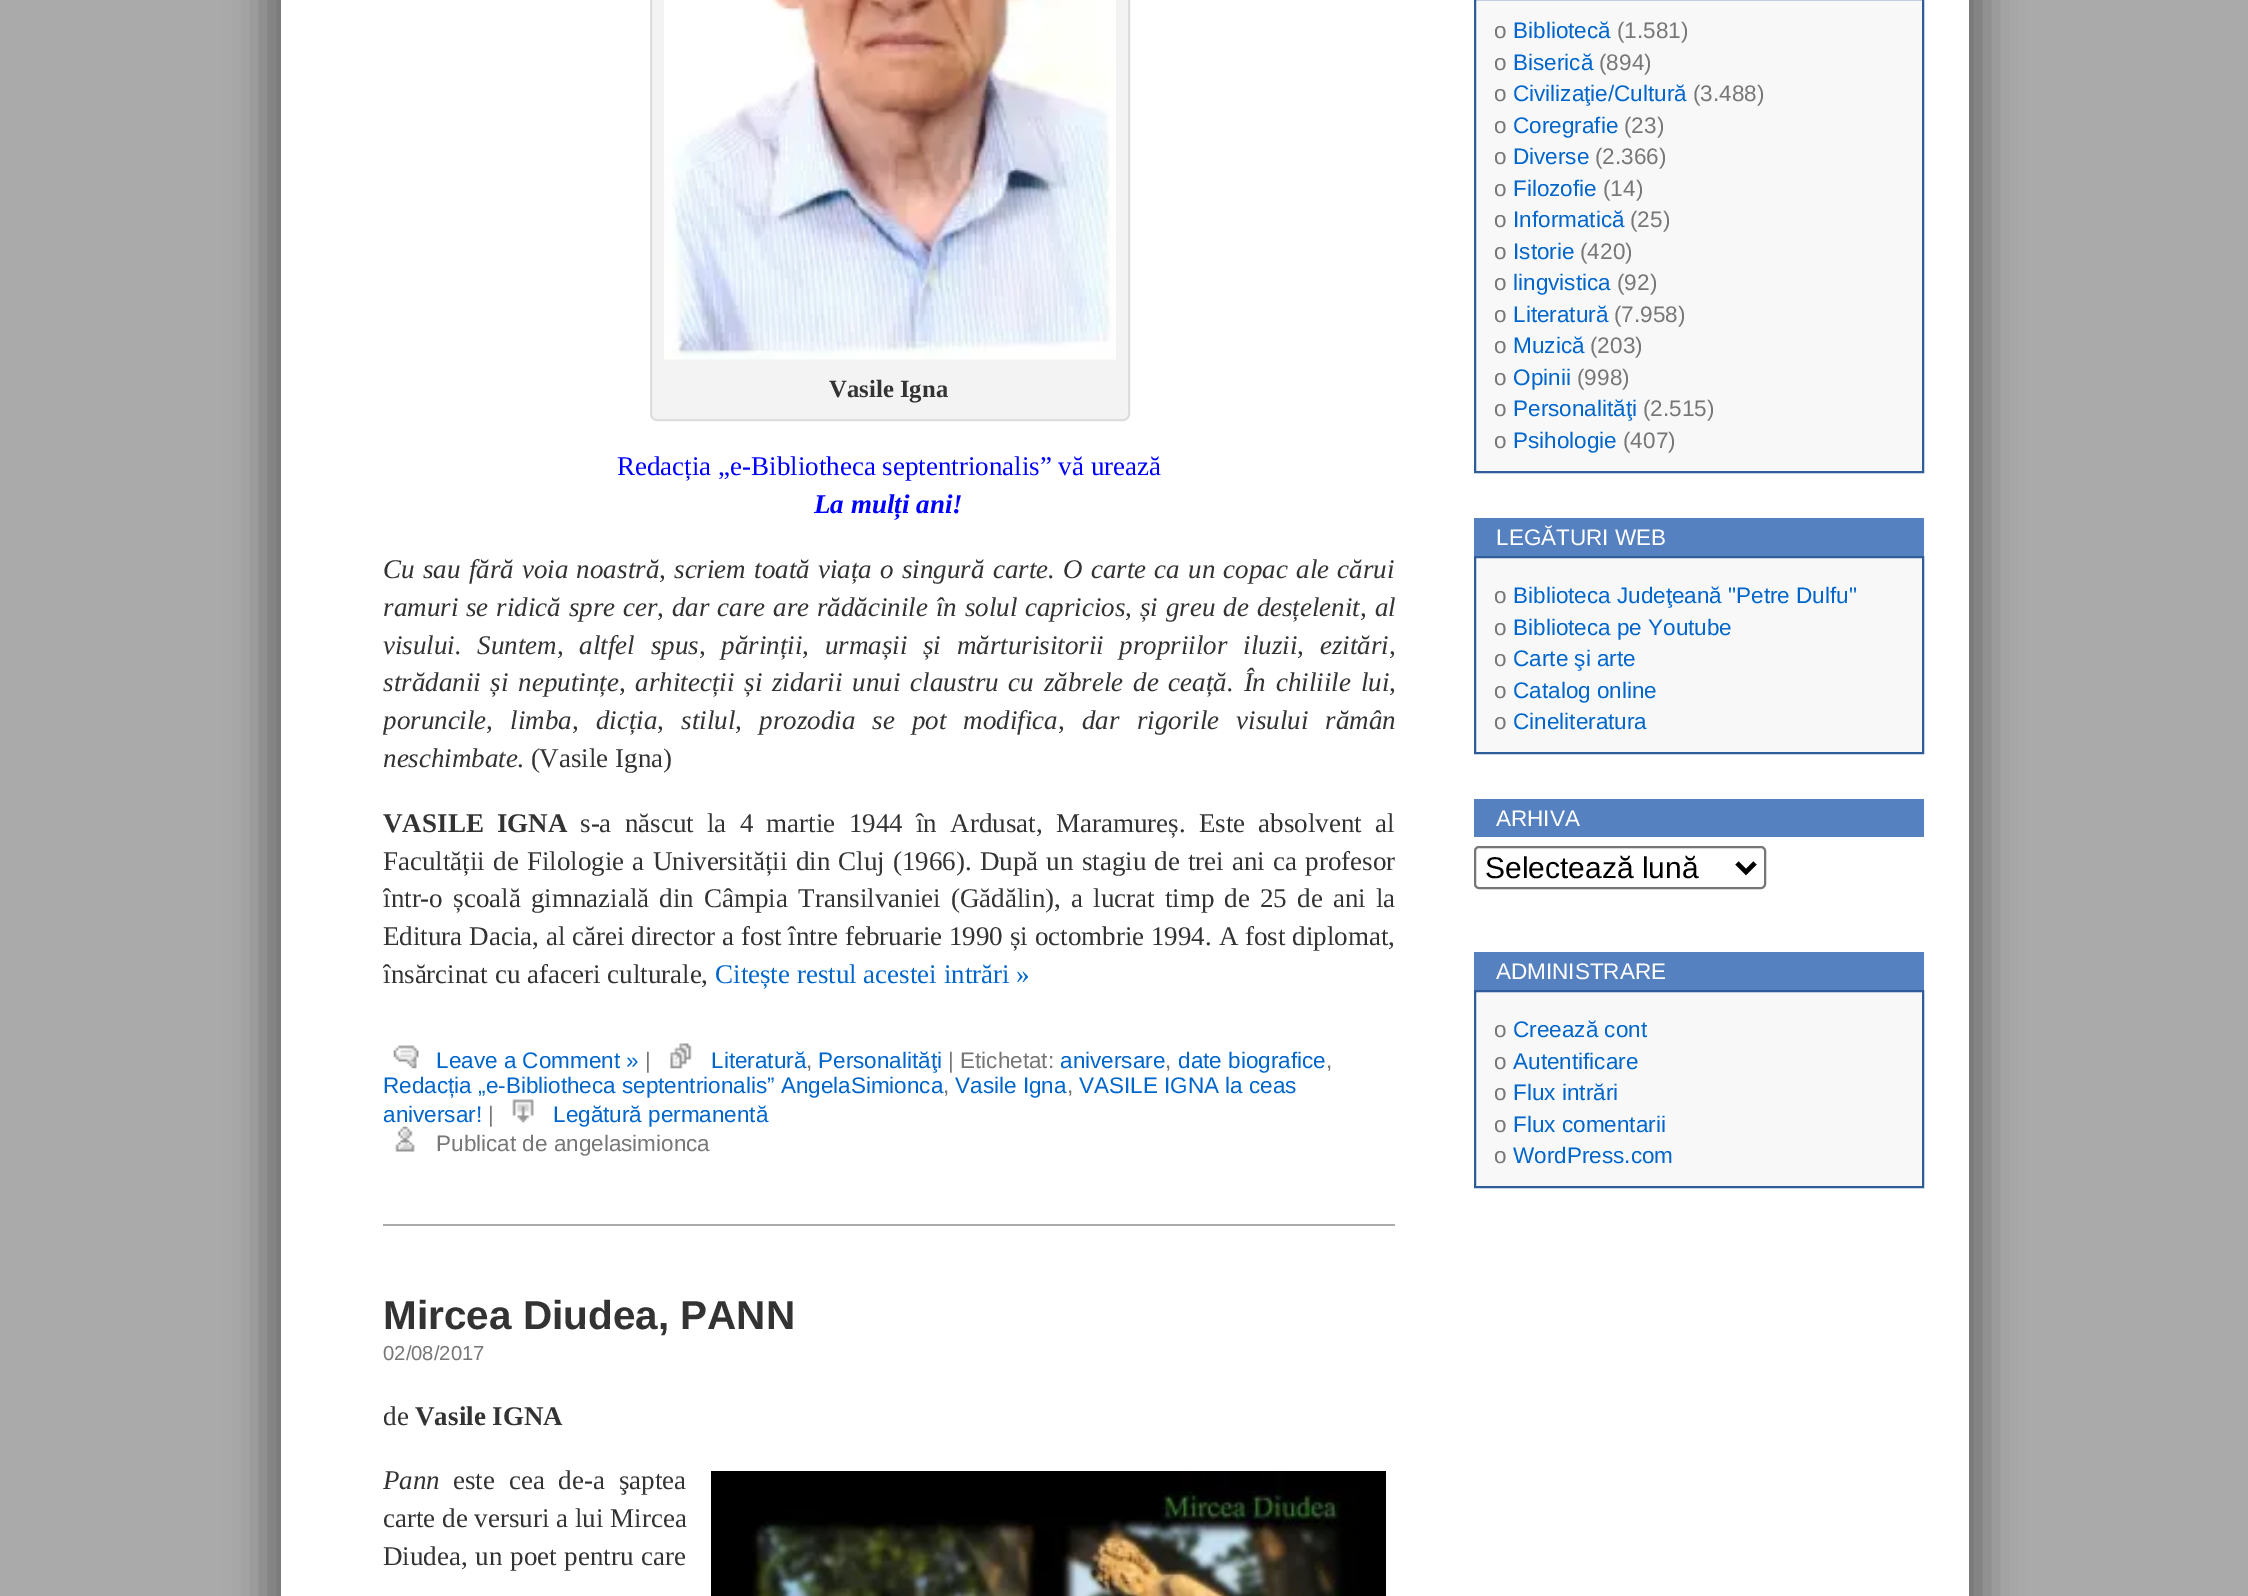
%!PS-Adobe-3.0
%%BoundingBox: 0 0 2248 1596
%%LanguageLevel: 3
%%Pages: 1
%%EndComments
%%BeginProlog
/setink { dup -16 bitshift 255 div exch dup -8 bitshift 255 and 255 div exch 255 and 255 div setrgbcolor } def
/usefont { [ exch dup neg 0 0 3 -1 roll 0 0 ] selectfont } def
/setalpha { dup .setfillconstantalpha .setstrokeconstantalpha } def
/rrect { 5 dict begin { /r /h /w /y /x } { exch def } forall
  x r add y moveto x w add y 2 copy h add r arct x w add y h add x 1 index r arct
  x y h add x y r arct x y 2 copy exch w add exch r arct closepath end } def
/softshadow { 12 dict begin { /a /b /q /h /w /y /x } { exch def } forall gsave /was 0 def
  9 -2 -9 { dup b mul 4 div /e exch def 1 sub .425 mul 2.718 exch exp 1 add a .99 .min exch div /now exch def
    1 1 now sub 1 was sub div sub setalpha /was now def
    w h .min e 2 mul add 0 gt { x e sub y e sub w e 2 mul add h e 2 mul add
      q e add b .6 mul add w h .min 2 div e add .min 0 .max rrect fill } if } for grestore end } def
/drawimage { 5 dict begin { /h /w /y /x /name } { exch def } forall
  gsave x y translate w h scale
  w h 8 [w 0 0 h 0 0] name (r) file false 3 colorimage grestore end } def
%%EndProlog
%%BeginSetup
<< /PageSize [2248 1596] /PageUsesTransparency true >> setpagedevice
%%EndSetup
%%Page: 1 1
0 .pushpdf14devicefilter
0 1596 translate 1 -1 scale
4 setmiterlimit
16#AAAAAA setink
0 0 2248 1596 rectfill
16#000000 setink
263 -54 1688 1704 0 18 0.3 softshadow
299 -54 1688 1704 0 18 0.3 softshadow
16#FFFFFF setink
281 0 1688 1596 rectfill
16#F3F3F3 setink
651 -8 478 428 6 rrect gsave fill grestore
16#DDDDDD setink
2 setlinewidth
stroke
(img1.raw) 664 0 452 360 drawimage
/LiberationSerif-Bold 24.75 usefont
16#333333 setink
829 397 moveto (Vasile Igna) show
/LiberationSerif-Regular 27 usefont
16#0000FF setink
617 475 moveto (Redacția „e-Bibliotheca septentrionalis” vă urează) show
/LiberationSerif-BoldItalic 27 usefont
814 513 moveto (La mulți ani!) show
/LiberationSerif-Italic 27 usefont
16#333333 setink
383 578 moveto 1.5 0 32 (Cu sau fără voia noastră, scriem toată viața o singură carte.) widthshow
1063 578 moveto 1.5 0 32 (O carte ca un copac ale cărui) widthshow
383 616 moveto 1.1 0 32 (ramuri se ridică spre cer, dar care are rădăcinile în solul capricios, și greu de desțelenit, al) widthshow
383 654 moveto 9 0 32 (visului. Suntem, altfel spus, părinții, urmașii și mărturisitorii propriilor iluzii, ezitări,) widthshow
383 691 moveto 3.1 0 32 (strădanii și neputințe, arhitecții și zidarii unui claustru cu zăbrele de ceață. În chiliile lui,) widthshow
gsave
383 0 1012 1022 rectclip
383 729 moveto 10.4 0 32 (poruncile, limba, dicția, stilul, prozodia se pot modifica, dar rigorile visului rămân) widthshow
grestore
383 767 moveto (neschimbate) show
/LiberationSerif-Regular 27 usefont
517 767 moveto (. \(Vasile Igna\)) show
/LiberationSerif-Bold 27 usefont
383 832 moveto 6.5 0 32 (VASILE IGNA) widthshow
/LiberationSerif-Regular 27 usefont
580 832 moveto 6.5 0 32 (s-a născut la 4 martie 1944 în Ardusat, Maramureș. Este absolvent al) widthshow
383 870 moveto 1.4 0 32 (Facultății de Filologie a Universității din Cluj \(1966\). După un stagiu de trei ani ca profesor) widthshow
gsave
383 0 1012 1022 rectclip
383 907 moveto 3.4 0 32 (într-o școală gimnazială din Câmpia Transilvaniei \(Gădălin\), a lucrat timp de 25 de ani la) widthshow
grestore
383 945 moveto 0.1 0 32 (Editura Dacia, al cărei director a fost între februarie 1990 și octombrie 1994. A fost diplomat,) widthshow
gsave
383 0 1012 1022 rectclip
383 983 moveto (însărcinat cu afaceri culturale,) show
grestore
16#0066CC setink
715 983 moveto (Citește restul acestei intrări ») show
(img2.raw) 393 1045 26 24 drawimage
/LiberationSans-Regular 22.5 usefont
436 1068 moveto (Leave a Comment ») show
16#777777 setink
645 1068 moveto (|) show
(img3.raw) 670 1043 22 26 drawimage
16#0066CC setink
711 1068 moveto (Literatură) show
16#777777 setink
806 1068 moveto (,) show
16#0066CC setink
818 1068 moveto (Personalităţi) show
16#777777 setink
948 1068 moveto (| Etichetat:) show
16#0066CC setink
1060 1068 moveto (aniversare) show
16#777777 setink
1165 1068 moveto (,) show
16#0066CC setink
1178 1068 moveto (date biografice) show
16#777777 setink
1326 1068 moveto (,) show
16#0066CC setink
383 1093 moveto (Redacția „e-Bibliotheca septentrionalis” AngelaSimionca) show
16#777777 setink
943 1093 moveto (,) show
16#0066CC setink
955 1093 moveto (Vasile Igna) show
16#777777 setink
1067 1093 moveto (,) show
16#0066CC setink
1079 1093 moveto (VASILE IGNA la ceas) show
383 1122 moveto (aniversar!) show
16#777777 setink
488 1122 moveto (|) show
(img4.raw) 512 1099 22 24 drawimage
16#0066CC setink
553 1122 moveto (Legătură permanentă) show
(img5.raw) 395 1126 20 26 drawimage
16#777777 setink
436 1151 moveto (Publicat de angelasimionca) show
16#AAAAAA setink
383 1224 1012 2 rectfill
/LiberationSans-Bold 40.5 usefont
16#333333 setink
383 1329 moveto (Mircea Diudea, PANN) show
/LiberationSans-Regular 20.25 usefont
16#777777 setink
383 1360 moveto (02/08/2017) show
/LiberationSerif-Regular 27 usefont
16#333333 setink
383 1425 moveto (de) show
/LiberationSerif-Bold 27 usefont
415 1425 moveto (Vasile IGNA) show
/LiberationSerif-Italic 27 usefont
383 1489 moveto (Pann) show
(img6.raw) 711 1471 675 125 drawimage
/LiberationSerif-Regular 27 usefont
453 1489 moveto 7 0 32 (este cea de-a şaptea) widthshow
383 1527 moveto (carte de versuri a lui Mircea) show
383 1565 moveto 1 0 32 (Diudea, un poet pentru care) widthshow
16#F8F8F8 setink
1475 -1 moveto 1923 -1 lineto 1923 472 lineto 1475 472 lineto closepath gsave fill grestore
16#2E5D99 setink
stroke
/LiberationSans-Regular 22.5 usefont
16#777777 setink
1494 38 moveto (o) show
16#0066CC setink
1513 38 moveto (Bibliotecă) show
16#777777 setink
1617 38 moveto (\(1.581\)) show
1494 70 moveto (o) show
16#0066CC setink
1513 70 moveto (Biserică) show
16#777777 setink
1599 70 moveto (\(894\)) show
1494 101 moveto (o) show
16#0066CC setink
1513 101 moveto (Civilizaţie/Cultură) show
16#777777 setink
1693 101 moveto (\(3.488\)) show
1494 133 moveto (o) show
16#0066CC setink
1513 133 moveto (Coregrafie) show
16#777777 setink
1624 133 moveto (\(23\)) show
1494 164 moveto (o) show
16#0066CC setink
1513 164 moveto (Diverse) show
16#777777 setink
1595 164 moveto (\(2.366\)) show
1494 196 moveto (o) show
16#0066CC setink
1513 196 moveto (Filozofie) show
16#777777 setink
1603 196 moveto (\(14\)) show
1494 227 moveto (o) show
16#0066CC setink
1513 227 moveto (Informatică) show
16#777777 setink
1630 227 moveto (\(25\)) show
1494 259 moveto (o) show
16#0066CC setink
1513 259 moveto (Istorie) show
16#777777 setink
1580 259 moveto (\(420\)) show
1494 290 moveto (o) show
16#0066CC setink
1513 290 moveto (lingvistica) show
16#777777 setink
1617 290 moveto (\(92\)) show
1494 322 moveto (o) show
16#0066CC setink
1513 322 moveto (Literatură) show
16#777777 setink
1614 322 moveto (\(7.958\)) show
1494 353 moveto (o) show
16#0066CC setink
1513 353 moveto (Muzică) show
16#777777 setink
1590 353 moveto (\(203\)) show
1494 385 moveto (o) show
16#0066CC setink
1513 385 moveto (Opinii) show
16#777777 setink
1577 385 moveto (\(998\)) show
1494 416 moveto (o) show
16#0066CC setink
1513 416 moveto (Personalităţi) show
16#777777 setink
1643 416 moveto (\(2.515\)) show
1494 448 moveto (o) show
16#0066CC setink
1513 448 moveto (Psihologie) show
16#777777 setink
1623 448 moveto (\(407\)) show
16#5581C0 setink
1474 518 450 38 rectfill
16#FFFFFF setink
1496 545 moveto (LEGĂTURI WEB) show
16#F8F8F8 setink
1475 557 moveto 1923 557 lineto 1923 753 lineto 1475 753 lineto closepath gsave fill grestore
16#2E5D99 setink
stroke
16#777777 setink
1494 603 moveto (o) show
16#0066CC setink
1513 603 moveto (Biblioteca Judeţeană "Petre Dulfu") show
16#777777 setink
1494 635 moveto (o) show
16#0066CC setink
1513 635 moveto (Biblioteca pe Youtube) show
16#777777 setink
1494 666 moveto (o) show
16#0066CC setink
1513 666 moveto (Carte şi arte) show
16#777777 setink
1494 698 moveto (o) show
16#0066CC setink
1513 698 moveto (Catalog online) show
16#777777 setink
1494 729 moveto (o) show
16#0066CC setink
1513 729 moveto (Cineliteratura) show
16#5581C0 setink
1474 799 450 38 rectfill
16#FFFFFF setink
1496 826 moveto (ARHIVA) show
16#767676 setink
1475 847 290 41 4 rrect stroke
16#000000 setink
4.5 setlinewidth
1737 863 moveto 1746 872 lineto 1755 863 lineto stroke
/LiberationSans-Regular 30 usefont
1485 878 moveto (Selectează lună) show
16#5581C0 setink
1474 952 450 38 rectfill
/LiberationSans-Regular 22.5 usefont
16#FFFFFF setink
1496 979 moveto (ADMINISTRARE) show
16#F8F8F8 setink
1475 991 moveto 1923 991 lineto 1923 1187 lineto 1475 1187 lineto closepath gsave fill grestore
16#2E5D99 setink
2 setlinewidth
stroke
16#777777 setink
1494 1037 moveto (o) show
16#0066CC setink
1513 1037 moveto (Creează cont) show
16#777777 setink
1494 1069 moveto (o) show
16#0066CC setink
1513 1069 moveto (Autentificare) show
16#777777 setink
1494 1100 moveto (o) show
16#0066CC setink
1513 1100 moveto (Flux intrări) show
16#777777 setink
1494 1132 moveto (o) show
16#0066CC setink
1513 1132 moveto (Flux comentarii) show
16#777777 setink
1494 1163 moveto (o) show
16#0066CC setink
1513 1163 moveto (WordPress.com) show
.poppdf14devicefilter showpage
%%EOF
